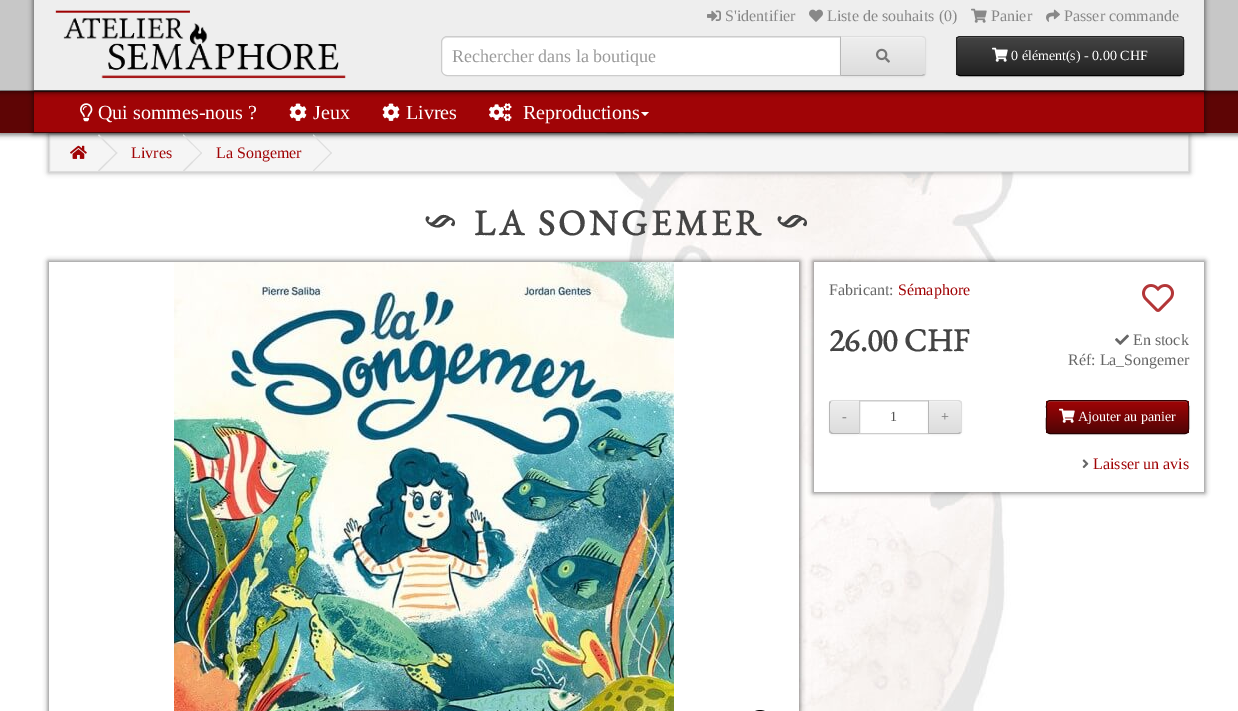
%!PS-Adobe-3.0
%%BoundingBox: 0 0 1238 711
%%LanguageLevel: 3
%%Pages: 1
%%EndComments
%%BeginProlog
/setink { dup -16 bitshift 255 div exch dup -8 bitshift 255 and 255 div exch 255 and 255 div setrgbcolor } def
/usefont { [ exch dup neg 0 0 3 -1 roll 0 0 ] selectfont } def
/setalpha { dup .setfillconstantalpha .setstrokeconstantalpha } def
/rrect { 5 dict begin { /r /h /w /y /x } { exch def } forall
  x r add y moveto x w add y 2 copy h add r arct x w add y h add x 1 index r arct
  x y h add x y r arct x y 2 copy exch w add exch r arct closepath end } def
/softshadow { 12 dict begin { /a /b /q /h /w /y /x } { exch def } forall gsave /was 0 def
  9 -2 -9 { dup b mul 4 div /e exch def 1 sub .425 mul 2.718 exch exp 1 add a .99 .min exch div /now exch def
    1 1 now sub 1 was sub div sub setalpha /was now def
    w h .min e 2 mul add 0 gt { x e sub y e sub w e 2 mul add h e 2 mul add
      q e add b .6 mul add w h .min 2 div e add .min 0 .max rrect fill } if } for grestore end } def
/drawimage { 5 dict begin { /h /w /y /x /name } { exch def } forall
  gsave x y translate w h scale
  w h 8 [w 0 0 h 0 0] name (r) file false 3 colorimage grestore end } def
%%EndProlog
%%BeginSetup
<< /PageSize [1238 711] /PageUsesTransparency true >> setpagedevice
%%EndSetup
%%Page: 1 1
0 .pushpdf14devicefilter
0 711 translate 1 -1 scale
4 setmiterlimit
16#FFFFFF setink
0 0 1238 711 rectfill
(img1.raw) 310 133 714 578 drawimage
16#646464 setink
48 133 1142 40 0 2.5 0.5 softshadow
16#F5F5F5 setink
49.5 134.5 moveto 1188.5 134.5 lineto 1188.5 171.5 lineto 49.5 171.5 lineto closepath gsave fill grestore
16#DDDDDD setink
stroke
16#000000 setink
-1 91 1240 44 0 2.5 0.5 softshadow
16#5E0505 setink
0 91 1238 42 rectfill
16#000000 setink
33 91 1172 42 0 2.5 0.5 softshadow
16#A00406 setink
34 92 1170 40 rectfill
16#000000 setink
-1 0 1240 92 0 2.5 0.5 softshadow
16#C7C7C7 setink
0 0 1238 90 rectfill
16#000000 setink
33 -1 1172 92 0 2.5 0.5 softshadow
16#EEEEEE setink
34 0 1170 90 rectfill
(img2.raw) 55 10 291 69 drawimage
(img3.raw) 707 10 14 12 drawimage
/LiberationSerif-Regular 16 usefont
16#888888 setink
725 21 moveto (S'identifier) show
(img4.raw) 809 9 14 13 drawimage
827 21 moveto (Liste de souhaits \(0\)) show
(img5.raw) 971 8 16 15 drawimage
991 21 moveto (Panier) show
(img6.raw) 1046 9 14 13 drawimage
1064 21 moveto (Passer commande) show
16#FFFFFF setink
447 36 moveto 841 36 lineto 841 76 lineto 447 76 lineto 443.5 76 441 73.5 441 70 curveto 441 42 lineto 441 38.5 443.5 36 447 36 curveto closepath fill
16#ECECEC setink
447 38 moveto 840 38 lineto 840 37 lineto 447 37 lineto 444 37 442 40 442 43 curveto 442 40 444 38 447 38 curveto closepath fill
16#CCCCCC setink
447 36.5 moveto 840.5 36.5 lineto 840.5 75.5 lineto 447 75.5 lineto 444 75.5 441.5 73 441.5 70 curveto 441.5 42 lineto 441.5 39 444 36.5 447 36.5 curveto closepath stroke
/LiberationSerif-Regular 18 usefont
16#999999 setink
452 62 moveto (Rechercher dans la boutique) show
16#000000 setink
840 37 86 40 4 1 0.05 softshadow
16#E7E7E7 setink
840 36 moveto 922 36 lineto 924 36 926 38 926 40 curveto 926 72 lineto 926 74 924 76 922 76 curveto 840 76 lineto closepath fill
gsave
840 36 moveto 922 36 lineto 924 36 926 38 926 40 curveto 926 72 lineto 926 74 924 76 922 76 curveto 840 76 lineto closepath clip newpath
gsave 841 37 moveto 926 37 lineto 926 75 lineto 841 75 lineto closepath clip newpath
<< /ShadingType 2 /ColorSpace /DeviceRGB /Coords [883 37 883 75] /Extend [true true] /Function << /FunctionType 2 /Domain [0 1] /C0 [0.933 0.933 0.933] /C1 [0.867 0.867 0.867] /N 1 >> >> shfill grestore
grestore
16#F1F1F1 setink
841 38 moveto 922 38 lineto 924 38 925 39 925 41 curveto 925 40 lineto 925 38 924 37 922 37 curveto 841 37 lineto closepath fill
16#DDDDDD setink
840 36 moveto 841 37 lineto 922 37 lineto 924 38 lineto 925 37 lineto 922 36 lineto closepath fill
926 72 moveto 926 40 lineto 926 39 925.5 38 925 37 curveto 924 38 lineto 925 38 925 39 925 40 curveto 925 72 lineto 925 73 925 74 924 74 curveto 925 75 lineto 925.5 74 926 73 926 72 curveto closepath fill
16#B3B3B3 setink
922 76 moveto 925 75 lineto 924 74 lineto 922 75 lineto 841 75 lineto 840 76 lineto closepath fill
16#B7B7B7 setink
840 36 moveto 840 76 lineto 841 75 lineto 841 37 lineto closepath fill
(img7.raw) 876 48 14 15 drawimage
16#000000 setink
956 37 228 40 4 1 0.05 softshadow
gsave
956 36 228 40 4 rrect clip newpath
gsave 956 37 moveto 1184 37 lineto 1184 75 lineto 956 75 lineto closepath clip newpath
<< /ShadingType 2 /ColorSpace /DeviceRGB /Coords [1070 37 1070 75] /Extend [true true] /Function << /FunctionType 2 /Domain [0 1] /C0 [0.267 0.267 0.267] /C1 [0.133 0.133 0.133] /N 1 >> >> shfill grestore
grestore
16#696969 setink
960 38 moveto 1180 38 lineto 1182 38 1183 39 1183 41 curveto 1183 40 lineto 1183 38 1182 37 1180 37 curveto 960 37 lineto 958 37 957 38 957 40 curveto 957 41 lineto 957 39 958 38 960 38 curveto closepath fill
16#000000 setink
1182.5 74.5 moveto 1182 75 1181 75.5 1180 75.5 curveto 960 75.5 lineto 959 75.5 958 75 957.5 74.5 curveto stroke
16#222222 setink
957.5 74.5 moveto 957 74 956.5 73 956.5 72 curveto 956.5 40 lineto 956.5 39 957 38 957.5 37.5 curveto 958 37 959 36.5 960 36.5 curveto 1180 36.5 lineto 1181 36.5 1182 37 1182.5 37.5 curveto 1183 38 1183.5 39 1183.5 40 curveto 1183.5 72 lineto 1183.5 73 1183 74 1182.5 74.5 curveto stroke
(img8.raw) 992 47 16 15 drawimage
/LiberationSerif-Regular 14 usefont
16#FFFFFF setink
1011 60 moveto (0 élément\(s\) - 0.00 CHF) show
(img9.raw) 80 103 13 19 drawimage
/LiberationSerif-Regular 20 usefont
98 119 moveto (Qui sommes-nous ?) show
(img10.raw) 289 103 18 18 drawimage
313 119 moveto (Jeux) show
(img10.raw) 382 103 18 18 drawimage
406 119 moveto (Livres) show
(img11.raw) 489 103 23 19 drawimage
523 119 moveto (Reproductions) show
641 112 moveto 649 112 lineto 645 116 lineto closepath fill
(img12.raw) 70 145 17 14 drawimage
16#DDDDDD setink
98 135.5 moveto 99 134.5 lineto 117.5 153 lineto 116.5 153.5 lineto closepath fill
98 170.5 moveto 116.5 152.5 lineto 117.5 153 lineto 99 171.5 lineto closepath fill
/LiberationSerif-Regular 16 usefont
16#A00406 setink
131 158 moveto (Livres) show
16#DDDDDD setink
183 135.5 moveto 183.5 134.5 lineto 202 153 lineto 201.5 153.5 lineto closepath fill
183 170.5 moveto 201.5 152.5 lineto 202 153 lineto 184 171.5 lineto closepath fill
16#A00406 setink
216 158 moveto (La Songemer) show
16#DDDDDD setink
313 135.5 moveto 313.5 134.5 lineto 332 153 lineto 331 153.5 lineto closepath fill
313 170.5 moveto 331 152.5 lineto 332 153 lineto 313.5 171.5 lineto closepath fill
/EBGaramond-Bold 36 usefont
16#444444 setink
gsave 431 214 translate 90 rotate 0 0 moveto 3.6 0 (§) ashow grestore
474 235 moveto 3.6 0 (LA SONGEMER) ashow
gsave 783 214 translate 90 rotate 0 0 moveto 3.6 0 (§) ashow grestore
16#000000 setink
48 261 752 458 0 2.5 0.5 softshadow
16#FFFFFF setink
49 262 750 449 rectfill
(img13.raw) 174 262 500 449 drawimage
(img14.raw) 755 710 10 1 drawimage
16#000000 setink
813 261 392 232 0 2.5 0.5 softshadow
16#FFFFFF setink
814 262 390 230 rectfill
/LiberationSerif-Regular 16 usefont
16#666666 setink
829 295 moveto (Fabricant:) show
16#A00406 setink
898 295 moveto (Sémaphore) show
(img15.raw) 1142 284 32 28 drawimage
/EBGaramond-Bold 32 usefont
16#444444 setink
829 351 moveto (26.00 CHF) show
(img16.raw) 1115 334 14 11 drawimage
/LiberationSerif-Regular 16 usefont
16#666666 setink
1133 345 moveto (En stock) show
1068 365 moveto (Réf: La_Songemer) show
16#000000 setink
829 401 31 34 4 1 0.05 softshadow
gsave
833 400 moveto 860 400 lineto 860 434 lineto 833 434 lineto 831 434 829 432 829 430 curveto 829 404 lineto 829 402 831 400 833 400 curveto closepath clip newpath
gsave 829 401 moveto 859 401 lineto 859 433 lineto 829 433 lineto closepath clip newpath
<< /ShadingType 2 /ColorSpace /DeviceRGB /Coords [845 401 845 433] /Extend [true true] /Function << /FunctionType 2 /Domain [0 1] /C0 [0.933 0.933 0.933] /C1 [0.867 0.867 0.867] /N 1 >> >> shfill grestore
grestore
16#F1F1F1 setink
833 402 moveto 859 402 lineto 859 401 lineto 833 401 lineto 831.5 401 830 402.5 830 404 curveto 830 405 lineto 830 403 831 402 833 402 curveto closepath fill
16#DDDDDD setink
833 400 moveto 832 400 831 400.5 830 401 curveto 831 402 lineto 831.5 401.5 832 401 833 401 curveto 859 401 lineto 860 400 lineto closepath fill
16#B3B3B3 setink
860 434 moveto 859 433 lineto 833 433 lineto 832 433 831.5 432.5 831 432 curveto 830 433 lineto 831 433.5 832 434 833 434 curveto closepath fill
16#B7B7B7 setink
829 404 moveto 829 430 lineto 829 431 829.5 432 830 433 curveto 831 432 lineto 830.5 431.5 830 431 830 430 curveto 830 404 lineto 830 403 830.5 402.5 831 402 curveto 830 401 lineto 829.5 402 829 403 829 404 curveto closepath fill
/LiberationSerif-Regular 14 usefont
16#777777 setink
842 421 moveto (-) show
16#FFFFFF setink
860 404 1 28 rectfill
16#ECECEC setink
860 401 68 1 rectfill
16#CCCCCC setink
859.5 400.5 69 33 rectstroke
16#555555 setink
890 421 moveto (1) show
16#000000 setink
928 401 34 34 4 1 0.05 softshadow
gsave
928 400 moveto 958 400 lineto 960 400 962 402 962 404 curveto 962 430 lineto 962 432 960 434 958 434 curveto 928 434 lineto closepath clip newpath
gsave 929 401 moveto 962 401 lineto 962 433 lineto 929 433 lineto closepath clip newpath
<< /ShadingType 2 /ColorSpace /DeviceRGB /Coords [945 401 945 433] /Extend [true true] /Function << /FunctionType 2 /Domain [0 1] /C0 [0.933 0.933 0.933] /C1 [0.867 0.867 0.867] /N 1 >> >> shfill grestore
grestore
16#F1F1F1 setink
929 402 moveto 958 402 lineto 960 402 961 403 961 405 curveto 961 404 lineto 961 402.5 959.5 401 958 401 curveto 929 401 lineto closepath fill
16#DDDDDD setink
928 400 moveto 929 401 lineto 958 401 lineto 959 401 959.5 401.5 960 402 curveto 961 401 lineto 960 400.5 959 400 958 400 curveto closepath fill
962 430 moveto 962 404 lineto 962 403 961.5 402 961 401 curveto 960 402 lineto 960.5 402.5 961 403 961 404 curveto 961 430 lineto 961 431 960.5 431.5 960 432 curveto 961 433 lineto 961.5 432 962 431 962 430 curveto closepath fill
16#B3B3B3 setink
958 434 moveto 959 434 960 433.5 961 433 curveto 960 432 lineto 959.5 432.5 959 433 958 433 curveto 929 433 lineto 928 434 lineto closepath fill
16#B7B7B7 setink
928 400 moveto 928 434 lineto 929 433 lineto 929 401 lineto closepath fill
16#777777 setink
941 421 moveto (+) show
16#000000 setink
1046 401 143 34 4 1 0.05 softshadow
gsave
1046 400 143 34 4 rrect clip newpath
gsave 1046 401 moveto 1189 401 lineto 1189 433 lineto 1046 433 lineto closepath clip newpath
<< /ShadingType 2 /ColorSpace /DeviceRGB /Coords [1118 401 1118 433] /Extend [true true] /Function << /FunctionType 2 /Domain [0 1] /C0 [0.627 0.016 0.024] /C1 [0.314 0.02 0.02] /N 1 >> >> shfill grestore
grestore
0.2 setalpha
16#FFFFFF setink
1050 402 moveto 1185 402 lineto 1187 402 1188 403 1188 405 curveto 1188 404 lineto 1188 402 1187 401 1185 401 curveto 1050 401 lineto 1048 401 1047 402 1047 404 curveto 1047 405 lineto 1047 403 1048 402 1050 402 curveto closepath fill
1 setalpha
16#260202 setink
1187.5 432.5 moveto 1187 433 1186 433.5 1185 433.5 curveto 1050 433.5 lineto 1049 433.5 1048 433 1047.5 432.5 curveto stroke
16#330303 setink
1047.5 432.5 moveto 1045.5 430 1046.5 420 1046.5 417 curveto 1046.5 408.5 lineto 1046.5 405.5 1046 400.5 1050 400.5 curveto 1185 400.5 lineto 1189 400.5 1188.5 405.5 1188.5 408.5 curveto 1188.5 417 lineto 1188.5 420 1189.5 430 1187.5 432.5 curveto stroke
(img17.raw) 1059 408 16 15 drawimage
16#FFFFFF setink
1078 421 moveto (Ajouter au panier) show
(img18.raw) 1082 459 7 10 drawimage
/LiberationSerif-Regular 16 usefont
16#A00406 setink
1093 469 moveto (Laisser un avis) show
.poppdf14devicefilter showpage
%%EOF
